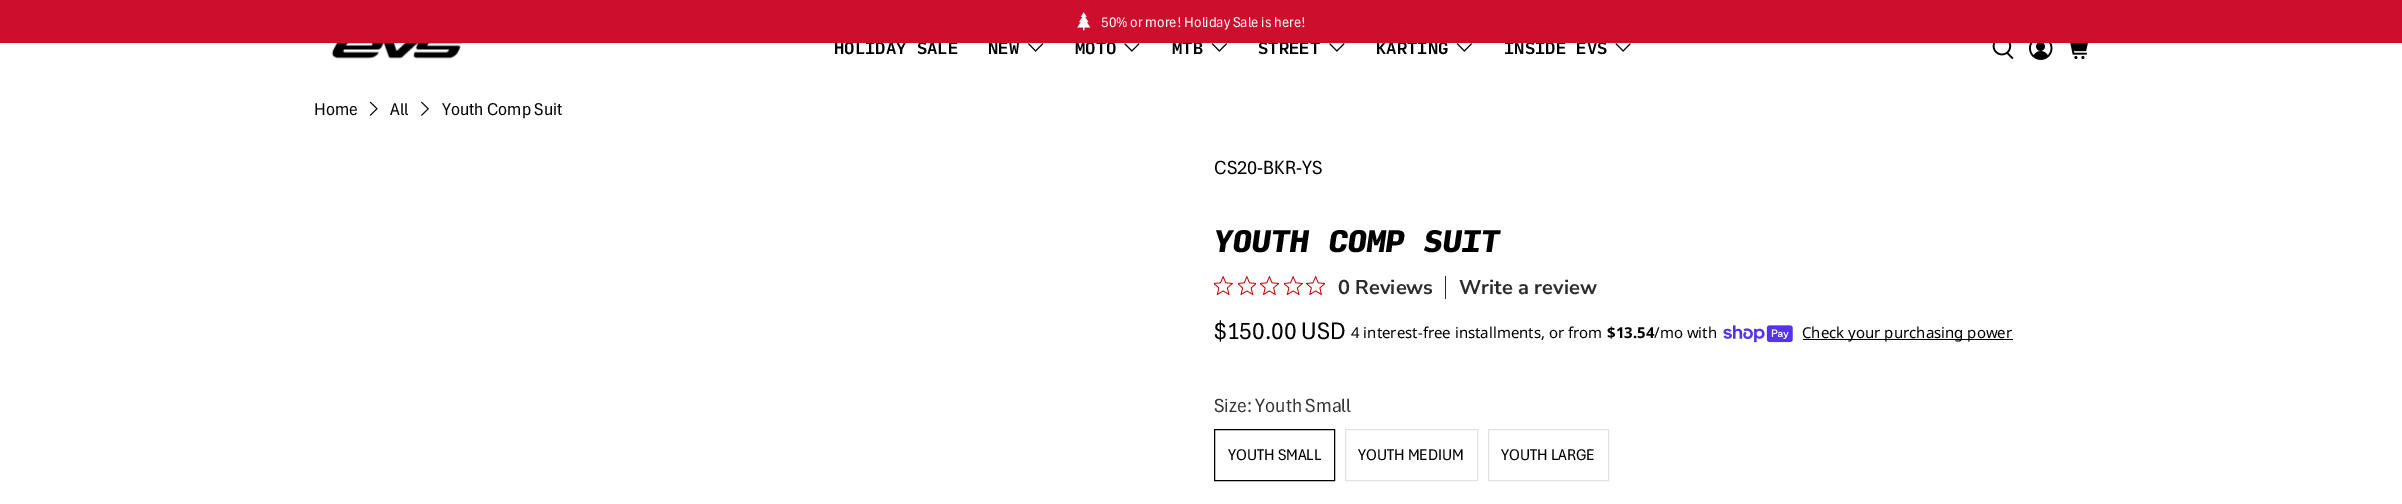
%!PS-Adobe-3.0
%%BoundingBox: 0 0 2402 504
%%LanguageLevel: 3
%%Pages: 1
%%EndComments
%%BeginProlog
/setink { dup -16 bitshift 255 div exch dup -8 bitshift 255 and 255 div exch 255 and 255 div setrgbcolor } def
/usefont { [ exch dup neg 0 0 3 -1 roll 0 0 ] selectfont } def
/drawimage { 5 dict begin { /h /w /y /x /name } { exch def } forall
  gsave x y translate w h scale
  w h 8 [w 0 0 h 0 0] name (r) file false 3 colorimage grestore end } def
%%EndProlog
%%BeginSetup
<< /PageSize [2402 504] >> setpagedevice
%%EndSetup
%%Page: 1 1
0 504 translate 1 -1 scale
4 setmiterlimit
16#FFFFFF setink
0 0 2402 504 rectfill
/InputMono-Medium 16.25 usefont
16#000000 setink
[
    [(HOLIDAY SALE) 834 54]
    [(NEW) 988 54]
    [(MOTO) 1075 54]
    [(MTB) 1172 54]
    [(STREET) 1258 54]
    [(KARTING) 1376 54]
    [(INSIDE EVS) 1504 54]
] { aload pop moveto show } forall
16#CE0E2D setink
0 0 2402 43 rectfill
(img1.raw) 1077 12 14 19 drawimage
/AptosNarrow-Regular 15 usefont
16#FFFFFF setink
1101 27 moveto (50% or more! Holiday Sale is here!) show
(img2.raw) 331 43 131 16 drawimage
(img3.raw) 1028 43 16 9 drawimage
(img4.raw) 1124 43 16 9 drawimage
(img5.raw) 1211 43 16 9 drawimage
(img4.raw) 1329 43 16 9 drawimage
(img5.raw) 1456 43 16 9 drawimage
(img6.raw) 1615 43 16 9 drawimage
(img7.raw) 1992 43 22 17 drawimage
(img8.raw) 2029 43 24 17 drawimage
(img9.raw) 2070 43 18 17 drawimage
/AptosNarrow-Regular 18 usefont
16#000000 setink
314 115 moveto (Home) show
(img10.raw) 369 101 9 15 drawimage
390 115 moveto (All) show
(img11.raw) 421 101 8 15 drawimage
442 115 moveto (Youth Comp Suit) show
/AptosNarrow-Regular 20 usefont
1214 174 moveto (CS20-BKR-YS) show
/InputMono-BlackItalic 30 usefont
1214 252 moveto (YOUTH COMP SUIT) show
(img12.raw) 1214 276 19 19 drawimage
(img13.raw) 1238 276 18 19 drawimage
(img14.raw) 1260 276 19 19 drawimage
(img12.raw) 1284 276 19 19 drawimage
(img15.raw) 1306 276 19 19 drawimage
/NunitoSans-ExtraLight 20 usefont
16#2C2C2C setink
1338 294 moveto (0 Reviews) show
1445 276 1 23 rectfill
1459 294 moveto (Write a review) show
/AptosNarrow-Regular 25 usefont
16#000000 setink
1214 339 moveto ($150.00 USD) show
/NotoSans-Regular 15 usefont
1351 338 moveto (4 interest-free installments, or from) show
/NotoSans-Bold 15 usefont
1607 338 moveto ($13.54) show
/NotoSans-Regular 15 usefont
1654 338 moveto (/mo with) show
(img16.raw) 1723 325 70 18 drawimage
1803 339 210 1 rectfill
1802 338 moveto (Check your purchasing power) show
/AptosNarrow-Regular 20 usefont
16#363636 setink
1214 412 moveto (Size: Youth Small) show
16#000000 setink
1214.5 429.5 120 51 rectstroke
/AptosNarrow-Regular 16.25 usefont
1228 460 moveto (YOUTH SMALL) show
16#E2E2E2 setink
1345.5 429.5 132 51 rectstroke
16#000000 setink
1358 460 moveto (YOUTH MEDIUM) show
16#E2E2E2 setink
1488.5 429.5 120 51 rectstroke
16#000000 setink
1501 460 moveto (YOUTH LARGE) show
showpage
%%EOF
